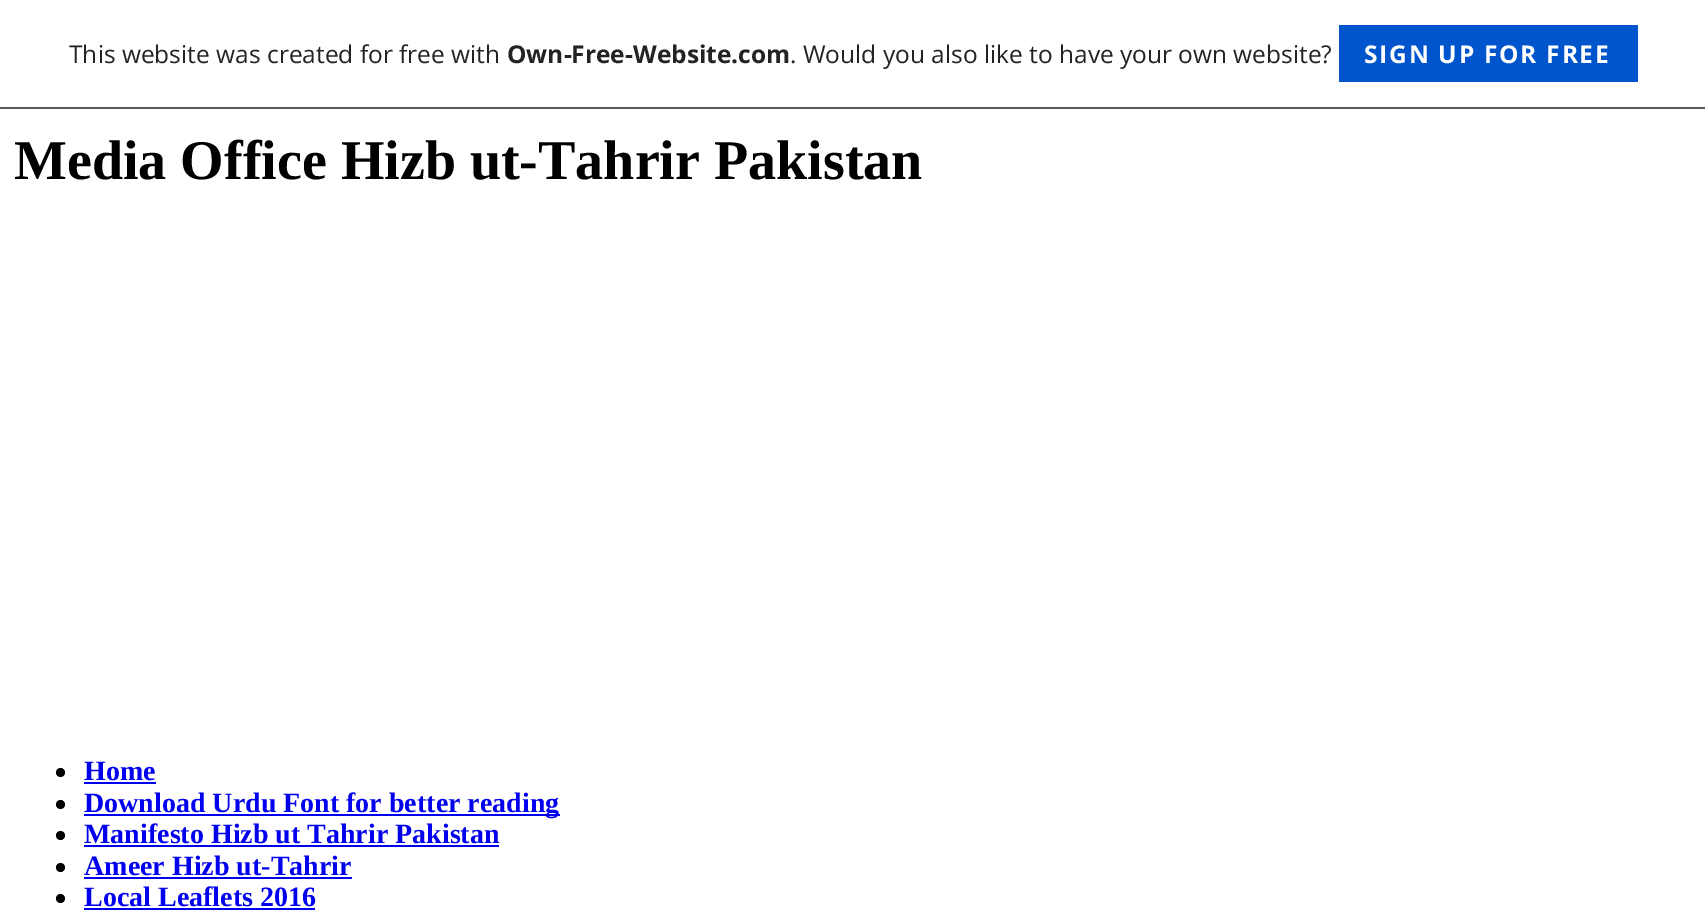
%!PS-Adobe-3.0
%%BoundingBox: 0 0 1705 910
%%LanguageLevel: 3
%%Pages: 1
%%EndComments
%%BeginProlog
/setink { dup -16 bitshift 255 div exch dup -8 bitshift 255 and 255 div exch 255 and 255 div setrgbcolor } def
/usefont { [ exch dup neg 0 0 3 -1 roll 0 0 ] selectfont } def
/disc { newpath 0 360 arc closepath } def
%%EndProlog
%%BeginSetup
<< /PageSize [1705 910] >> setpagedevice
%%EndSetup
%%Page: 1 1
0 910 translate 1 -1 scale
4 setmiterlimit
16#FFFFFF setink
0 0 1705 910 rectfill
16#5A5A5A setink
0 107 1705 2 rectfill
/OpenSans-Regular 24.5 usefont
16#232323 setink
69 63 moveto (This website was created for free with) show
/OpenSans-Bold 24.5 usefont
507 63 moveto (Own-Free-Website.com) show
/OpenSans-Regular 24.5 usefont
790 63 moveto (. Would you also like to have your own website?) show
16#0055CC setink
1339 25 299 57 rectfill
/OpenSans-Bold 24.5 usefont
16#FFFFFF setink
1364 63 moveto 1.75 0 (SIGN UP FOR FREE) ashow
/LiberationSerif-Bold 56 usefont
16#000000 setink
14 179 moveto (Media Office Hizb ut-Tahrir Pakistan) show
60.5 772.5 4.5 disc fill
/LiberationSerif-Bold 28 usefont
16#0000EE setink
84 780 moveto (Home) show
84 782 72 2 rectfill
16#000000 setink
60.5 804.5 4.5 disc fill
16#0000EE setink
84 814 476 2 rectfill
84 812 moveto (Download Urdu Font for better reading) show
16#000000 setink
60.5 835.5 4.5 disc fill
16#0000EE setink
84 843 moveto (Manifesto Hizb ut Tahrir Pakistan) show
84 845 415 2 rectfill
16#000000 setink
60.5 867.5 4.5 disc fill
16#0000EE setink
84 875 moveto (Ameer Hizb ut-Tahrir) show
84 877 268 2 rectfill
16#000000 setink
60.5 898.5 4.5 disc fill
16#0000EE setink
84 906 moveto (Local Leaflets 2016) show
84 908 231 2 rectfill
showpage
%%EOF
